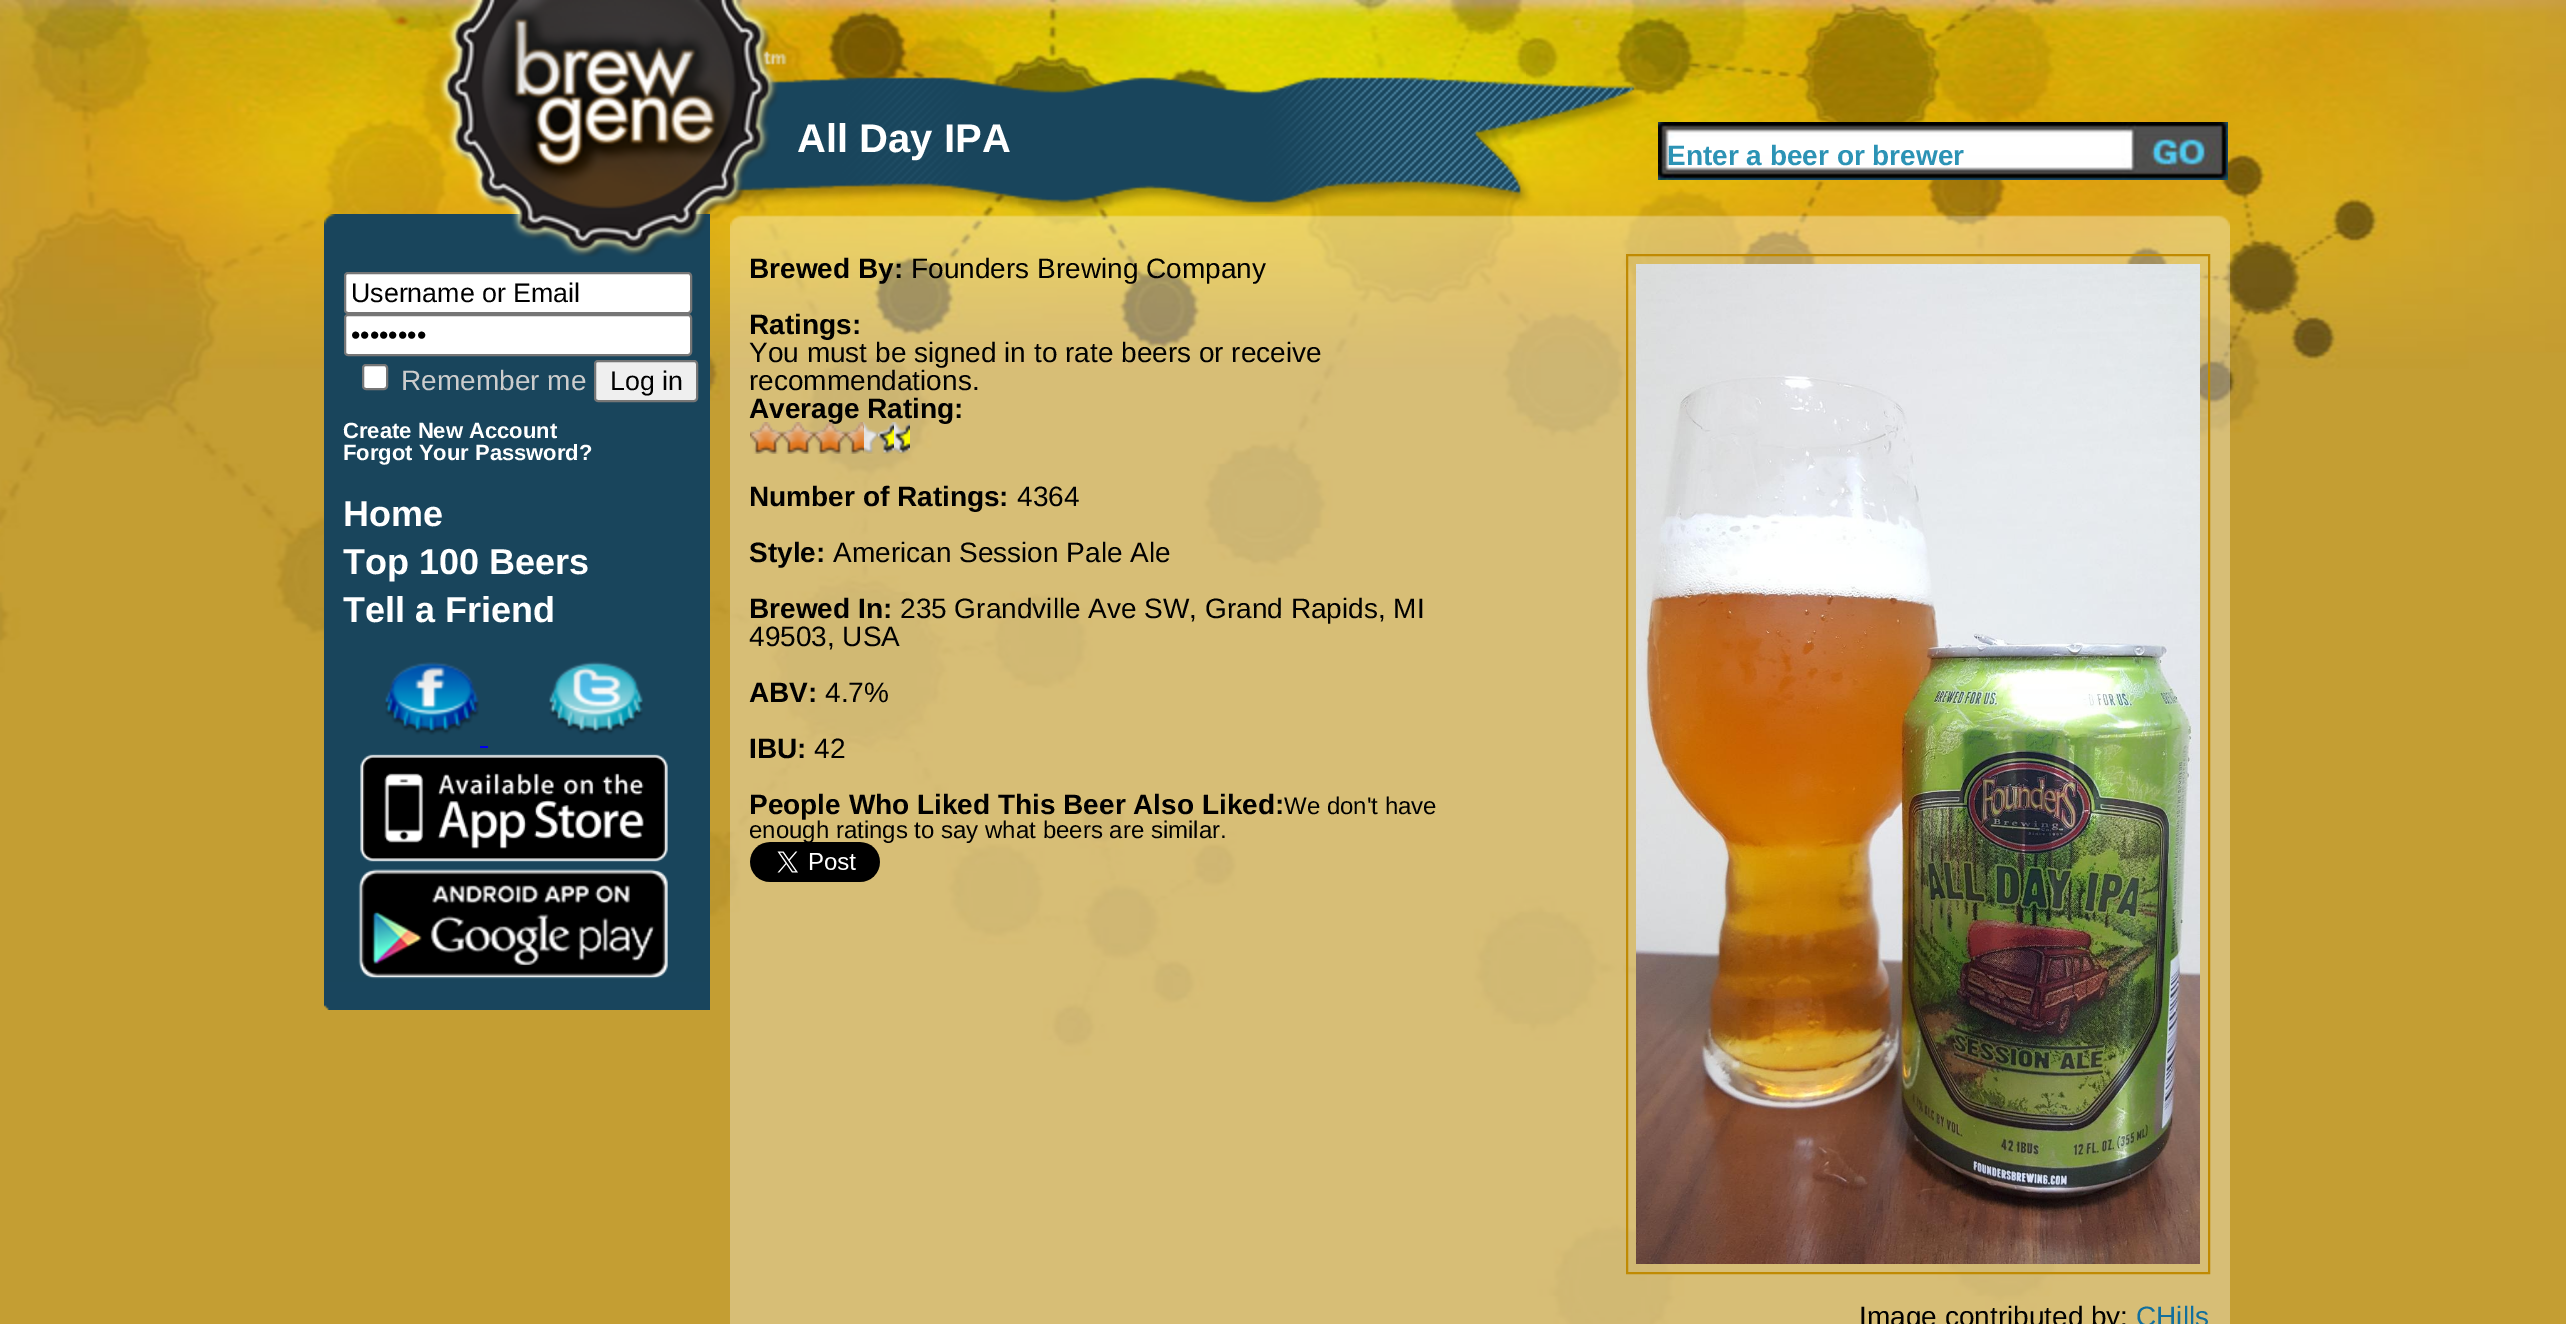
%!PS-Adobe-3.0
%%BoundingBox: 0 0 2566 1324
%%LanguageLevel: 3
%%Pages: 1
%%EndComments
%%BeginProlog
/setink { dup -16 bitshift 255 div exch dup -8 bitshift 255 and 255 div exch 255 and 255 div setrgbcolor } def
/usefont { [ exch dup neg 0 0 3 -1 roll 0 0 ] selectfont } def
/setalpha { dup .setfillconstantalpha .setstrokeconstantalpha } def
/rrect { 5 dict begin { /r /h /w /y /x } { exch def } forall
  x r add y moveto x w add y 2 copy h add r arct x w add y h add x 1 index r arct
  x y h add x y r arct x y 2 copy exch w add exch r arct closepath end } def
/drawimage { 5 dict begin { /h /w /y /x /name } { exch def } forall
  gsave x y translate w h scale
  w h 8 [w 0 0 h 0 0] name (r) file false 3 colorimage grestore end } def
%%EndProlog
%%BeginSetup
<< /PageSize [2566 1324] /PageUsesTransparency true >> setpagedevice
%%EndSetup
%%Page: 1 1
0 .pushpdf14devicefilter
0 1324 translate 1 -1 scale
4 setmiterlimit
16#FFFFFF setink
0 0 2566 1324 rectfill
(img1.raw) 0 0 2566 1324 drawimage
(img2.raw) 439 0 1203 214 drawimage
/LiberationSans-Bold 40 usefont
797 152 moveto (All Day IPA) show
(img3.raw) 1658 122 570 58 drawimage
/LiberationSans-Bold 28 usefont
16#2C93B5 setink
1667 165 moveto (Enter a beer or brewer) show
(img4.raw) 324 214 386 768 drawimage
16#FFFFFF setink
345 273 346 40 3 rrect gsave fill grestore
16#767676 setink
2 setlinewidth
stroke
/LiberationSans-Regular 26.75 usefont
16#000000 setink
351 302 moveto (Username or Email) show
16#FFFFFF setink
345 315 346 40 3 rrect gsave fill grestore
16#767676 setink
stroke
16#000000 setink
351 344 moveto (••••••••) show
16#FFFFFF setink
363 365 24 24 3 rrect gsave fill grestore
16#767676 setink
stroke
/LiberationSans-Regular 28 usefont
16#CCCCCC setink
401 390 moveto (Remember me) show
16#EFEFEF setink
595 361 102 40 3 rrect gsave fill grestore
16#767676 setink
stroke
/LiberationSans-Regular 26.75 usefont
16#000000 setink
610 390 moveto (Log in) show
/LiberationSans-Bold 22 usefont
16#FFFFFF setink
343 438 moveto (Create New Account) show
343 460 moveto (Forgot Your Password?) show
/LiberationSans-Bold 36 usefont
[
    [(Home) 343 526]
    [(Top 100 Beers) 343 574]
    [(Tell a Friend) 343 622]
] { aload pop moveto show } forall
(img5.raw) 385 662 94 73 drawimage
(img6.raw) 549 661 94 74 drawimage
16#0000EE setink
480 746 8 2 rectfill
(img7.raw) 360 754 308 108 drawimage
(img8.raw) 358 869 310 110 drawimage
(img9.raw) 324 982 386 28 drawimage
(img10.raw) 730 215 1500 19 drawimage
0.33 setalpha
16#FFFFFF setink
730 234 1500 1090 rectfill
/LiberationSans-Bold 28 usefont
1 setalpha
16#000000 setink
749 278 moveto (Brewed By:) show
/LiberationSans-Regular 28 usefont
911 278 moveto (Founders Brewing Company) show
/LiberationSans-Bold 28 usefont
749 334 moveto (Ratings:) show
/LiberationSans-Regular 28 usefont
749 362 moveto (You must be signed in to rate beers or receive) show
749 390 moveto (recommendations.) show
/LiberationSans-Bold 28 usefont
749 418 moveto (Average Rating:) show
(img11.raw) 750 422 16 32 drawimage
(img12.raw) 750 422 16 32 drawimage
(img13.raw) 766 422 16 32 drawimage
(img14.raw) 766 422 16 32 drawimage
(img11.raw) 782 422 16 32 drawimage
(img12.raw) 782 422 16 32 drawimage
(img15.raw) 798 422 16 32 drawimage
(img16.raw) 798 422 16 32 drawimage
(img17.raw) 814 422 16 32 drawimage
(img18.raw) 814 422 16 32 drawimage
(img19.raw) 830 422 16 32 drawimage
(img20.raw) 830 422 16 32 drawimage
(img21.raw) 846 422 16 32 drawimage
(img22.raw) 846 422 16 32 drawimage
(img23.raw) 862 422 16 32 drawimage
(img24.raw) 862 422 2 31 drawimage
(img25.raw) 878 422 16 32 drawimage
(img26.raw) 878 423 16 30 drawimage
(img27.raw) 894 422 13 32 drawimage
(img28.raw) 895 423 15 30 drawimage
749 506 moveto (Number of Ratings:) show
/LiberationSans-Regular 28 usefont
1017 506 moveto (4364) show
/LiberationSans-Bold 28 usefont
749 562 moveto (Style:) show
/LiberationSans-Regular 28 usefont
833 562 moveto (American Session Pale Ale) show
/LiberationSans-Bold 28 usefont
749 618 moveto (Brewed In:) show
/LiberationSans-Regular 28 usefont
900 618 moveto (235 Grandville Ave SW, Grand Rapids, MI) show
749 646 moveto (49503, USA) show
/LiberationSans-Bold 28 usefont
749 702 moveto (ABV:) show
/LiberationSans-Regular 28 usefont
825 702 moveto (4.7%) show
/LiberationSans-Bold 28 usefont
749 758 moveto (IBU:) show
/LiberationSans-Regular 28 usefont
814 758 moveto (42) show
/LiberationSans-Bold 28 usefont
749 814 moveto (People Who Liked This Beer Also Liked:) show
/LiberationSans-Regular 24 usefont
1284 814 moveto (We don't have) show
749 838 moveto (enough ratings to say what beers are similar.) show
(img29.raw) 750 842 130 40 drawimage
16#C08A02 setink
1627 255 582 1018 rectstroke
(img30.raw) 1636 264 564 1000 drawimage
/LiberationSans-Regular 28 usefont
16#000000 setink
1859 1326 moveto (Image contributed by:) show
16#126F9D setink
2136 1326 moveto (CHills) show
.poppdf14devicefilter showpage
%%EOF
